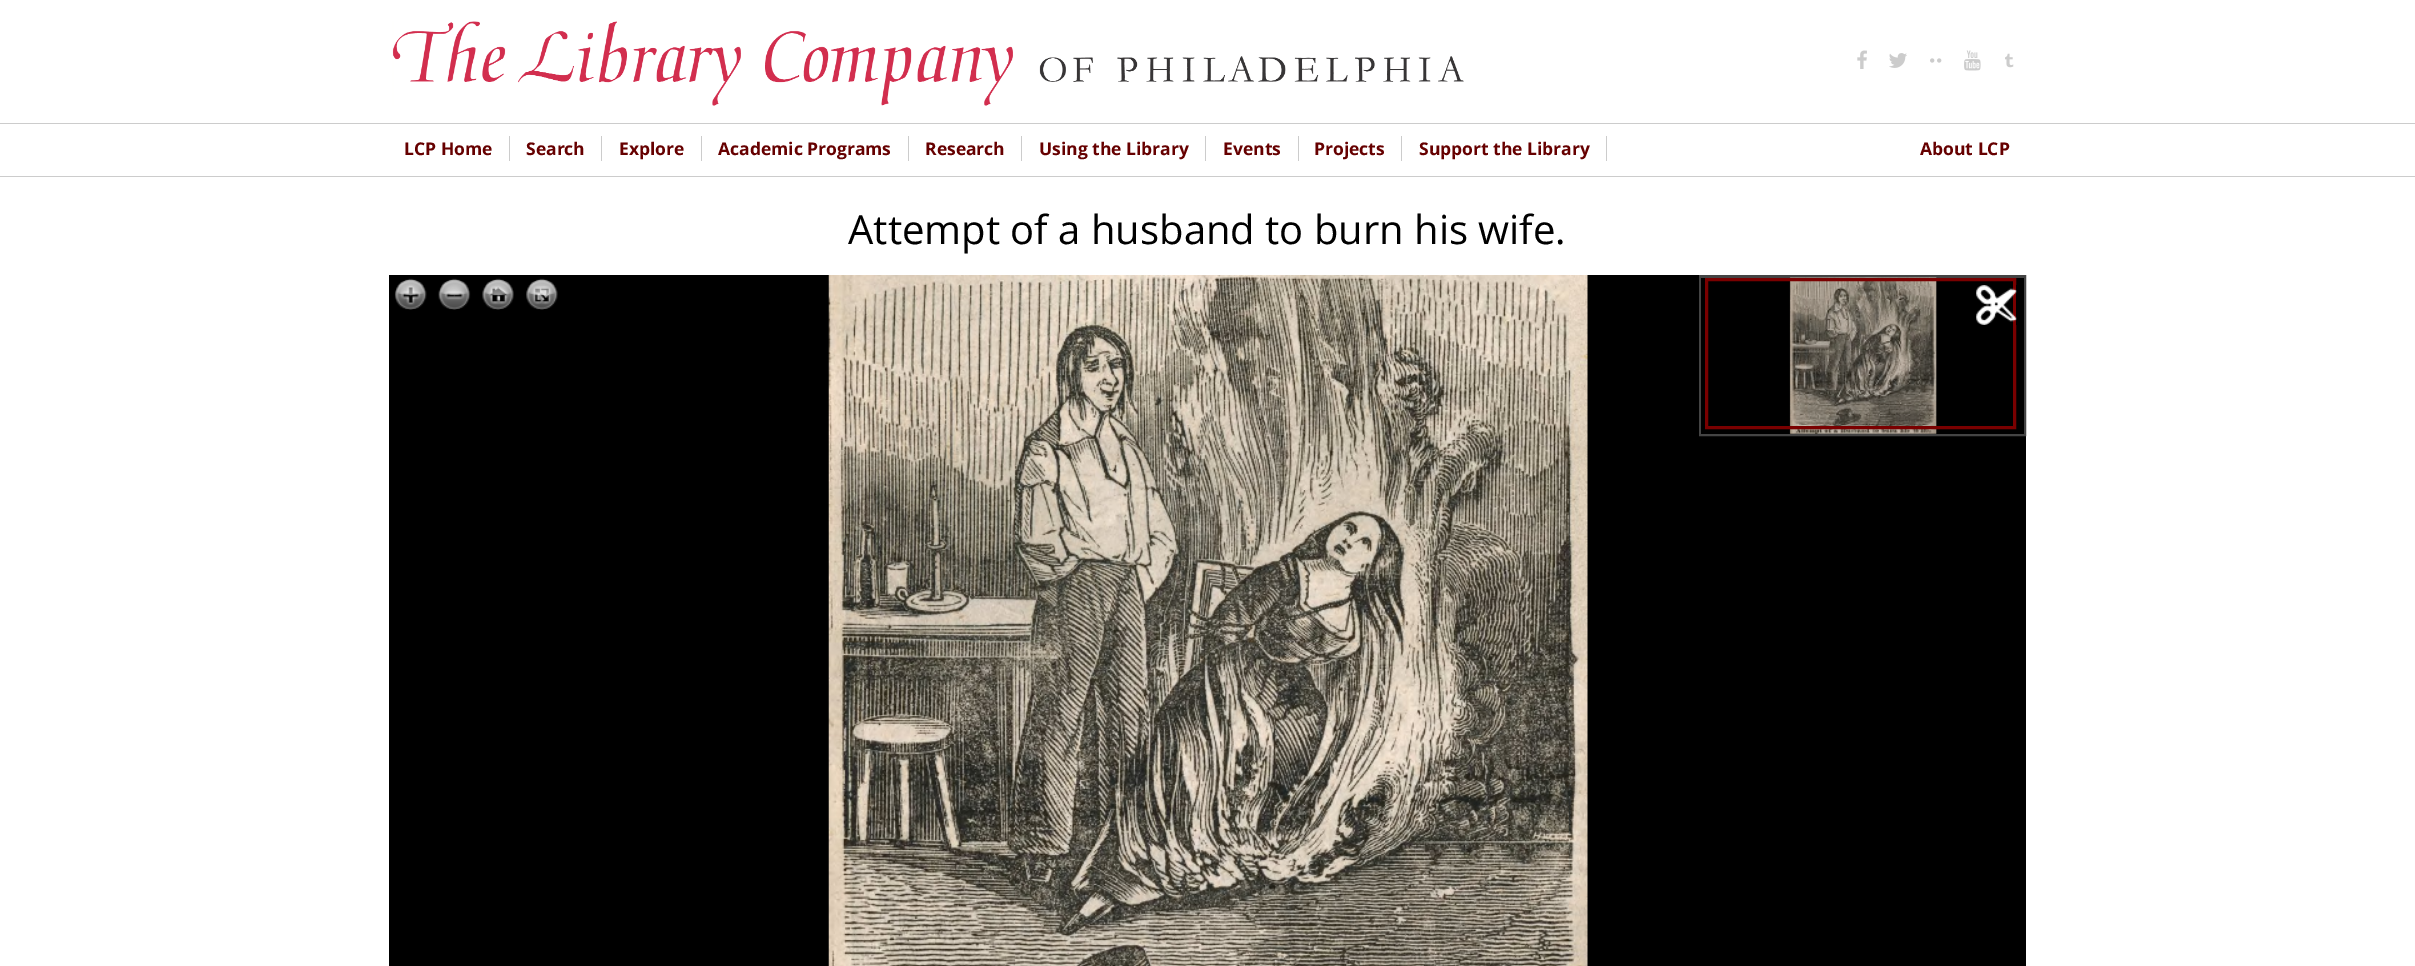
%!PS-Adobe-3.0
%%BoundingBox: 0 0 2415 966
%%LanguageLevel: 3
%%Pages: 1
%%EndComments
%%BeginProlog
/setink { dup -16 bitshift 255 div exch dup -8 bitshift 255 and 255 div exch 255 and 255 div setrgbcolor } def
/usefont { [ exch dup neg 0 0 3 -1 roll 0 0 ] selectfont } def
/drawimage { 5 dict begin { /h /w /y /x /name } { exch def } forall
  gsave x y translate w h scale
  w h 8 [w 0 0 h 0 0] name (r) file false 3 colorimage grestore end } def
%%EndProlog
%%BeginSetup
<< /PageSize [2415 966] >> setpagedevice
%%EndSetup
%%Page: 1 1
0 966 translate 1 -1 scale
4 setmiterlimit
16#FFFFFF setink
0 0 2415 966 rectfill
(img1.raw) 392 21 1072 85 drawimage
(img2.raw) 1857 50 10 19 drawimage
(img3.raw) 1889 53 18 15 drawimage
(img4.raw) 1930 58 12 5 drawimage
(img5.raw) 1964 50 17 21 drawimage
(img6.raw) 2005 53 9 15 drawimage
[
    [0 123 2415 1 16#CCCCCC]
    [0 176 2415 1 16#CCCCCC]
    [509 136 1 25 16#CCCCCC]
] { aload pop setink rectfill } forall
/OpenSans-Bold 17.5 usefont
16#660000 setink
404 155 moveto (LCP Home) show
16#CCCCCC setink
601 136 1 25 rectfill
16#660000 setink
526 155 moveto (Search) show
16#CCCCCC setink
701 136 1 25 rectfill
16#660000 setink
619 155 moveto (Explore) show
16#CCCCCC setink
908 136 1 25 rectfill
16#660000 setink
718 155 moveto (Academic Programs) show
16#CCCCCC setink
1021 136 1 25 rectfill
16#660000 setink
925 155 moveto (Research) show
16#CCCCCC setink
1205 136 1 25 rectfill
16#660000 setink
1039 155 moveto (Using the Library) show
16#CCCCCC setink
1298 136 1 25 rectfill
16#660000 setink
1223 155 moveto (Events) show
16#CCCCCC setink
1401 136 1 25 rectfill
16#660000 setink
1314 155 moveto (Projects) show
16#CCCCCC setink
1606 136 1 25 rectfill
16#660000 setink
1419 155 moveto (Support the Library) show
1920 155 moveto (About LCP) show
/OpenSans-Regular 40 usefont
16#000000 setink
848 244 moveto (Attempt of a husband to burn his wife.) show
389 275 1637 691 rectfill
(img7.raw) 828 275 760 691 drawimage
(img8.raw) 394 278 33 32 drawimage
(img9.raw) 395 279 32 31 drawimage
(img10.raw) 438 278 33 32 drawimage
(img11.raw) 438 279 32 31 drawimage
(img12.raw) 482 278 32 32 drawimage
(img13.raw) 482 279 32 31 drawimage
(img14.raw) 526 278 32 32 drawimage
(img15.raw) 526 279 32 31 drawimage
16#444444 setink
3 setlinewidth
1700.5 276.5 324 158 rectstroke
16#000000 setink
1701 278 323 156 rectfill
(img16.raw) 1789 277 148 157 drawimage
16#7A0000 setink
1706.5 279.5 308 148 rectstroke
(img17.raw) 1976 285 41 40 drawimage
showpage
%%EOF
